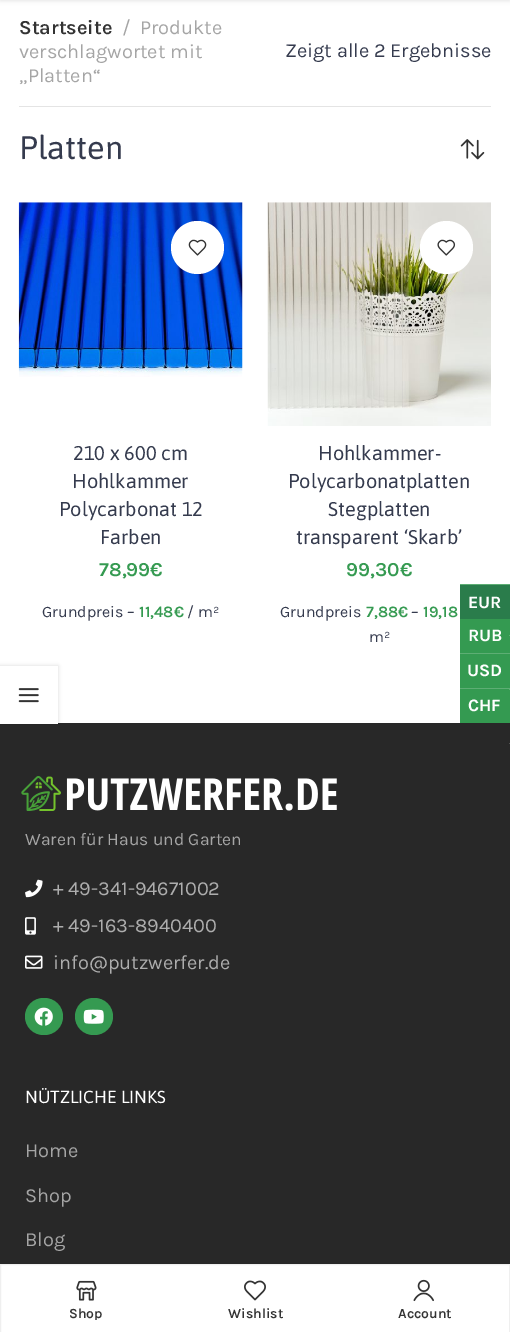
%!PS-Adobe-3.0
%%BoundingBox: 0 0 510 1332
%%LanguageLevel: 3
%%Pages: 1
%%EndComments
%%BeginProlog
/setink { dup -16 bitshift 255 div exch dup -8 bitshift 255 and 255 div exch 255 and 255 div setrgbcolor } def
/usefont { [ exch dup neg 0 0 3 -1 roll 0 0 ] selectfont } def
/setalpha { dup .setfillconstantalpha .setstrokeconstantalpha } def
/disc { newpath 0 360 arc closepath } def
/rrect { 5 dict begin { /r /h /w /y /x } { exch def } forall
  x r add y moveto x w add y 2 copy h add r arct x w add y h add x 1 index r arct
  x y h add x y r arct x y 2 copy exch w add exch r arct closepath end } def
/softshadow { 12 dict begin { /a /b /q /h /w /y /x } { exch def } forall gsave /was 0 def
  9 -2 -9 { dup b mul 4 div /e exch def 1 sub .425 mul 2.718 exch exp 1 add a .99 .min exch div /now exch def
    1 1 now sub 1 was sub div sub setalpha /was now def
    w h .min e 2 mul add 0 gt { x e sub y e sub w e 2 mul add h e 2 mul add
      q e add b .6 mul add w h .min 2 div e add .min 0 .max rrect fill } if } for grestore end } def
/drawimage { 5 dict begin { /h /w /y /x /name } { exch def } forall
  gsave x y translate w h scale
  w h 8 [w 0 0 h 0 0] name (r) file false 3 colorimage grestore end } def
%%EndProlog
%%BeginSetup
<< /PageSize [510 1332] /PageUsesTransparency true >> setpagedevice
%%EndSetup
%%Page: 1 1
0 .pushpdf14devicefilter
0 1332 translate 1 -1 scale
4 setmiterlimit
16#FFFFFF setink
0 0 510 1332 rectfill
16#000000 setink
0 -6 510 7 0 2 0.1 softshadow
16#E4E4E4 setink
19 106 472 1 rectfill
/Karla-SemiBold 20 usefont
16#333333 setink
19 34 moveto (Startseite) show
/Karla-Regular 20 usefont
16#A5A5A5 setink
[
    [(/) 122 34]
    [(Produkte) 140 34]
    [(verschlagwortet mit) 19 58]
    [(„Platten“) 19 82]
] { aload pop moveto show } forall
16#353B4E setink
285 57 moveto (Zeigt alle 2 Ergebnisse) show
/Asap-Regular 32.5 usefont
19 159 moveto (Platten) show
(img1.raw) 460 139 25 21 drawimage
(img2.raw) 18 202 225 175 drawimage
16#FFFFFF setink
197.5 247.5 26.5 disc fill
(img3.raw) 188 239 19 17 drawimage
/Asap-Regular 20 usefont
16#353B4E setink
[
    [(210 x 600 cm) 73 460]
    [(Hohlkammer) 72 488]
    [(Polycarbonat 12) 59 516]
    [(Farben) 100 544]
] { aload pop moveto show } forall
/Karla-SemiBold 20 usefont
16#359A51 setink
99 576 moveto (78,99€) show
/Karla-Regular 16 usefont
16#353B4E setink
42 617 moveto (Grundpreis –) show
/Karla-SemiBold 16 usefont
16#359A51 setink
139 617 moveto (11,48€) show
/Karla-Regular 16 usefont
16#353B4E setink
187 617 moveto (/ m²) show
(img4.raw) 267 202 224 224 drawimage
16#FFFFFF setink
446.5 247.5 26.5 disc fill
(img5.raw) 437 239 19 17 drawimage
/Asap-Regular 20 usefont
16#353B4E setink
[
    [(Hohlkammer-) 318 460]
    [(Polycarbonatplatten) 288 488]
    [(Stegplatten) 328 516]
    [(transparent ‘Skarb’) 296 544]
] { aload pop moveto show } forall
/Karla-SemiBold 20 usefont
16#359A51 setink
346 576 moveto (99,30€) show
/Karla-Regular 16 usefont
16#353B4E setink
280 617 moveto (Grundpreis) show
/Karla-SemiBold 16 usefont
16#359A51 setink
366 617 moveto (7,88€) show
/Karla-Regular 16 usefont
16#353B4E setink
411 617 moveto (–) show
/Karla-SemiBold 16 usefont
16#359A51 setink
423 617 moveto (19,18) show
/Karla-Regular 16 usefont
16#353B4E setink
369 642 moveto (m²) show
16#282828 setink
0 723 510 541 rectfill
16#000000 setink
0 666 58 58 0 2 0.15 softshadow
16#FFFFFF setink
0 666 58 58 rectfill
(img6.raw) 18 688 21 15 drawimage
(img7.raw) 21 776 316 35 drawimage
/Karla-Regular 17.5 usefont
16#A5A5A5 setink
25 845 moveto (Waren für Haus und Garten) show
(img8.raw) 25 879 18 19 drawimage
/Karla-Regular 20 usefont
16#ADADAD setink
53 895 moveto (+ 49-341-94671002) show
(img9.raw) 25 917 11 18 drawimage
53 932 moveto (+ 49-163-8940400) show
(img10.raw) 25 955 18 14 drawimage
53 969 moveto (info@putzwerfer.de) show
16#359A51 setink
25 998 38 37 18.5 rrect fill
(img11.raw) 34 1007 19 19 drawimage
75 998 38 37 18.5 rrect fill
(img12.raw) 83 1009 21 15 drawimage
/Asap-Regular 17.5 usefont
16#FFFFFF setink
25 1103 moveto (NÜTZLICHE LINKS) show
/Karla-Regular 20 usefont
16#A5A5A5 setink
[
    [(Home) 25 1157]
    [(Shop) 25 1202]
    [(Blog) 25 1246]
] { aload pop moveto show } forall
[
    [460 619 50 104 16#349A51]
    [460 584 50 1 16#5DAE74]
    [460 585 50 34 16#2A7C4B]
] { aload pop setink rectfill } forall
/Karla-Bold 17.5 usefont
16#FFFFFF setink
468 608 moveto (EUR) show
16#5DAE74 setink
460 653 50 1 rectfill
16#FFFFFF setink
468 641 moveto (RUB) show
16#5DAE74 setink
460 688 50 1 rectfill
16#FFFFFF setink
467 676 moveto (USD) show
468 711 moveto (CHF) show
[
    [509 635 1 1 16#5DAE74]
    [509 689 1 1 16#5DAE74]
    [509 743 1 1 16#535353]
] { aload pop setink rectfill } forall
16#EFEFEF setink
0.5 1264.5 509 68 rectstroke
(img13.raw) 76 1280 21 21 drawimage
gsave
14 1306 144 14 rectclip
/Karla-SemiBold 14 usefont
16#333333 setink
69 1318 moveto (Shop) show
grestore
(img14.raw) 244 1280 22 21 drawimage
/Karla-SemiBold 14 usefont
16#333333 setink
228 1318 moveto (Wishlist) show
(img15.raw) 413 1279 21 23 drawimage
398 1318 moveto (Account) show
.poppdf14devicefilter showpage
%%EOF
